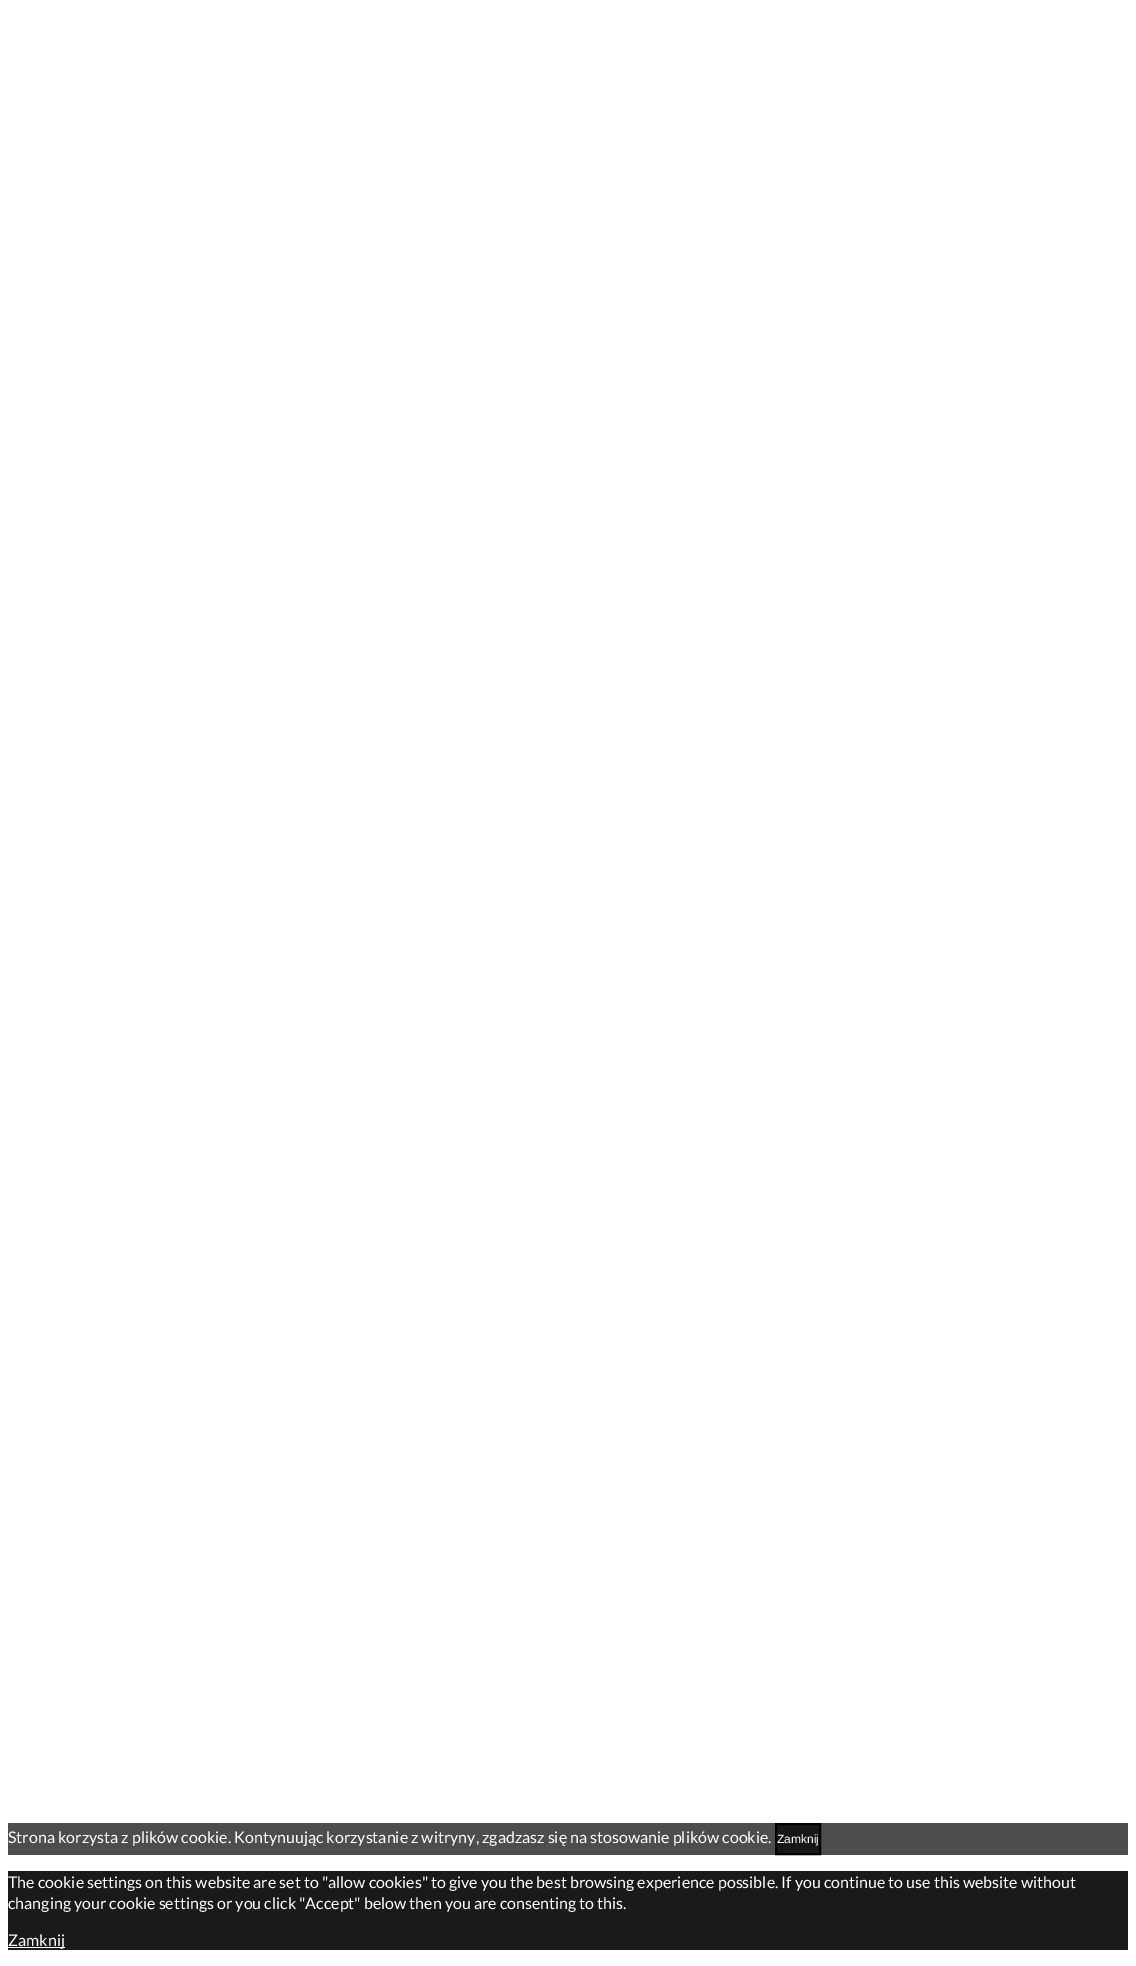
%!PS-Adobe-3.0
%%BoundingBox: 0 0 1136 1966
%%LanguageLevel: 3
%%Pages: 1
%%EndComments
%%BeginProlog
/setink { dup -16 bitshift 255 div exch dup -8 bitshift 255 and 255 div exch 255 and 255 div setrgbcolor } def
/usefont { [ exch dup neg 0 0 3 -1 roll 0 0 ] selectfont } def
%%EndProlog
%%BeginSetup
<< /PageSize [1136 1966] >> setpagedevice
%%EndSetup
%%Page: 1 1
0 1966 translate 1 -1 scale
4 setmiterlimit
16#FFFFFF setink
0 0 1136 1966 rectfill
16#4D4D4D setink
8 1823 1120 32 rectfill
/Lato-Regular 16 usefont
16#FFFFFF setink
8 1843 moveto (Strona korzysta z plików cookie. Kontynuując korzystanie z witryny, zgadzasz się na stosowanie plików cookie.) show
16#171717 setink
776 1824 moveto 820 1824 lineto 820 1854 lineto 776 1854 lineto closepath gsave fill grestore
16#000000 setink
2 setlinewidth
stroke
/LiberationSans-Regular 12 usefont
16#FFFFFF setink
777 1843 moveto (Zamknij) show
16#1A1A1A setink
8 1871 1120 79 rectfill
/Lato-Regular 16 usefont
16#FFFFFF setink
8 1888 moveto (The cookie settings on this website are set to "allow cookies" to give you the best browsing experience possible. If you continue to use this website without) show
8 1909 moveto (changing your cookie settings or you click "Accept" below then you are consenting to this.) show
8 1947 57 1 rectfill
8 1946 moveto (Zamknij) show
showpage
%%EOF
